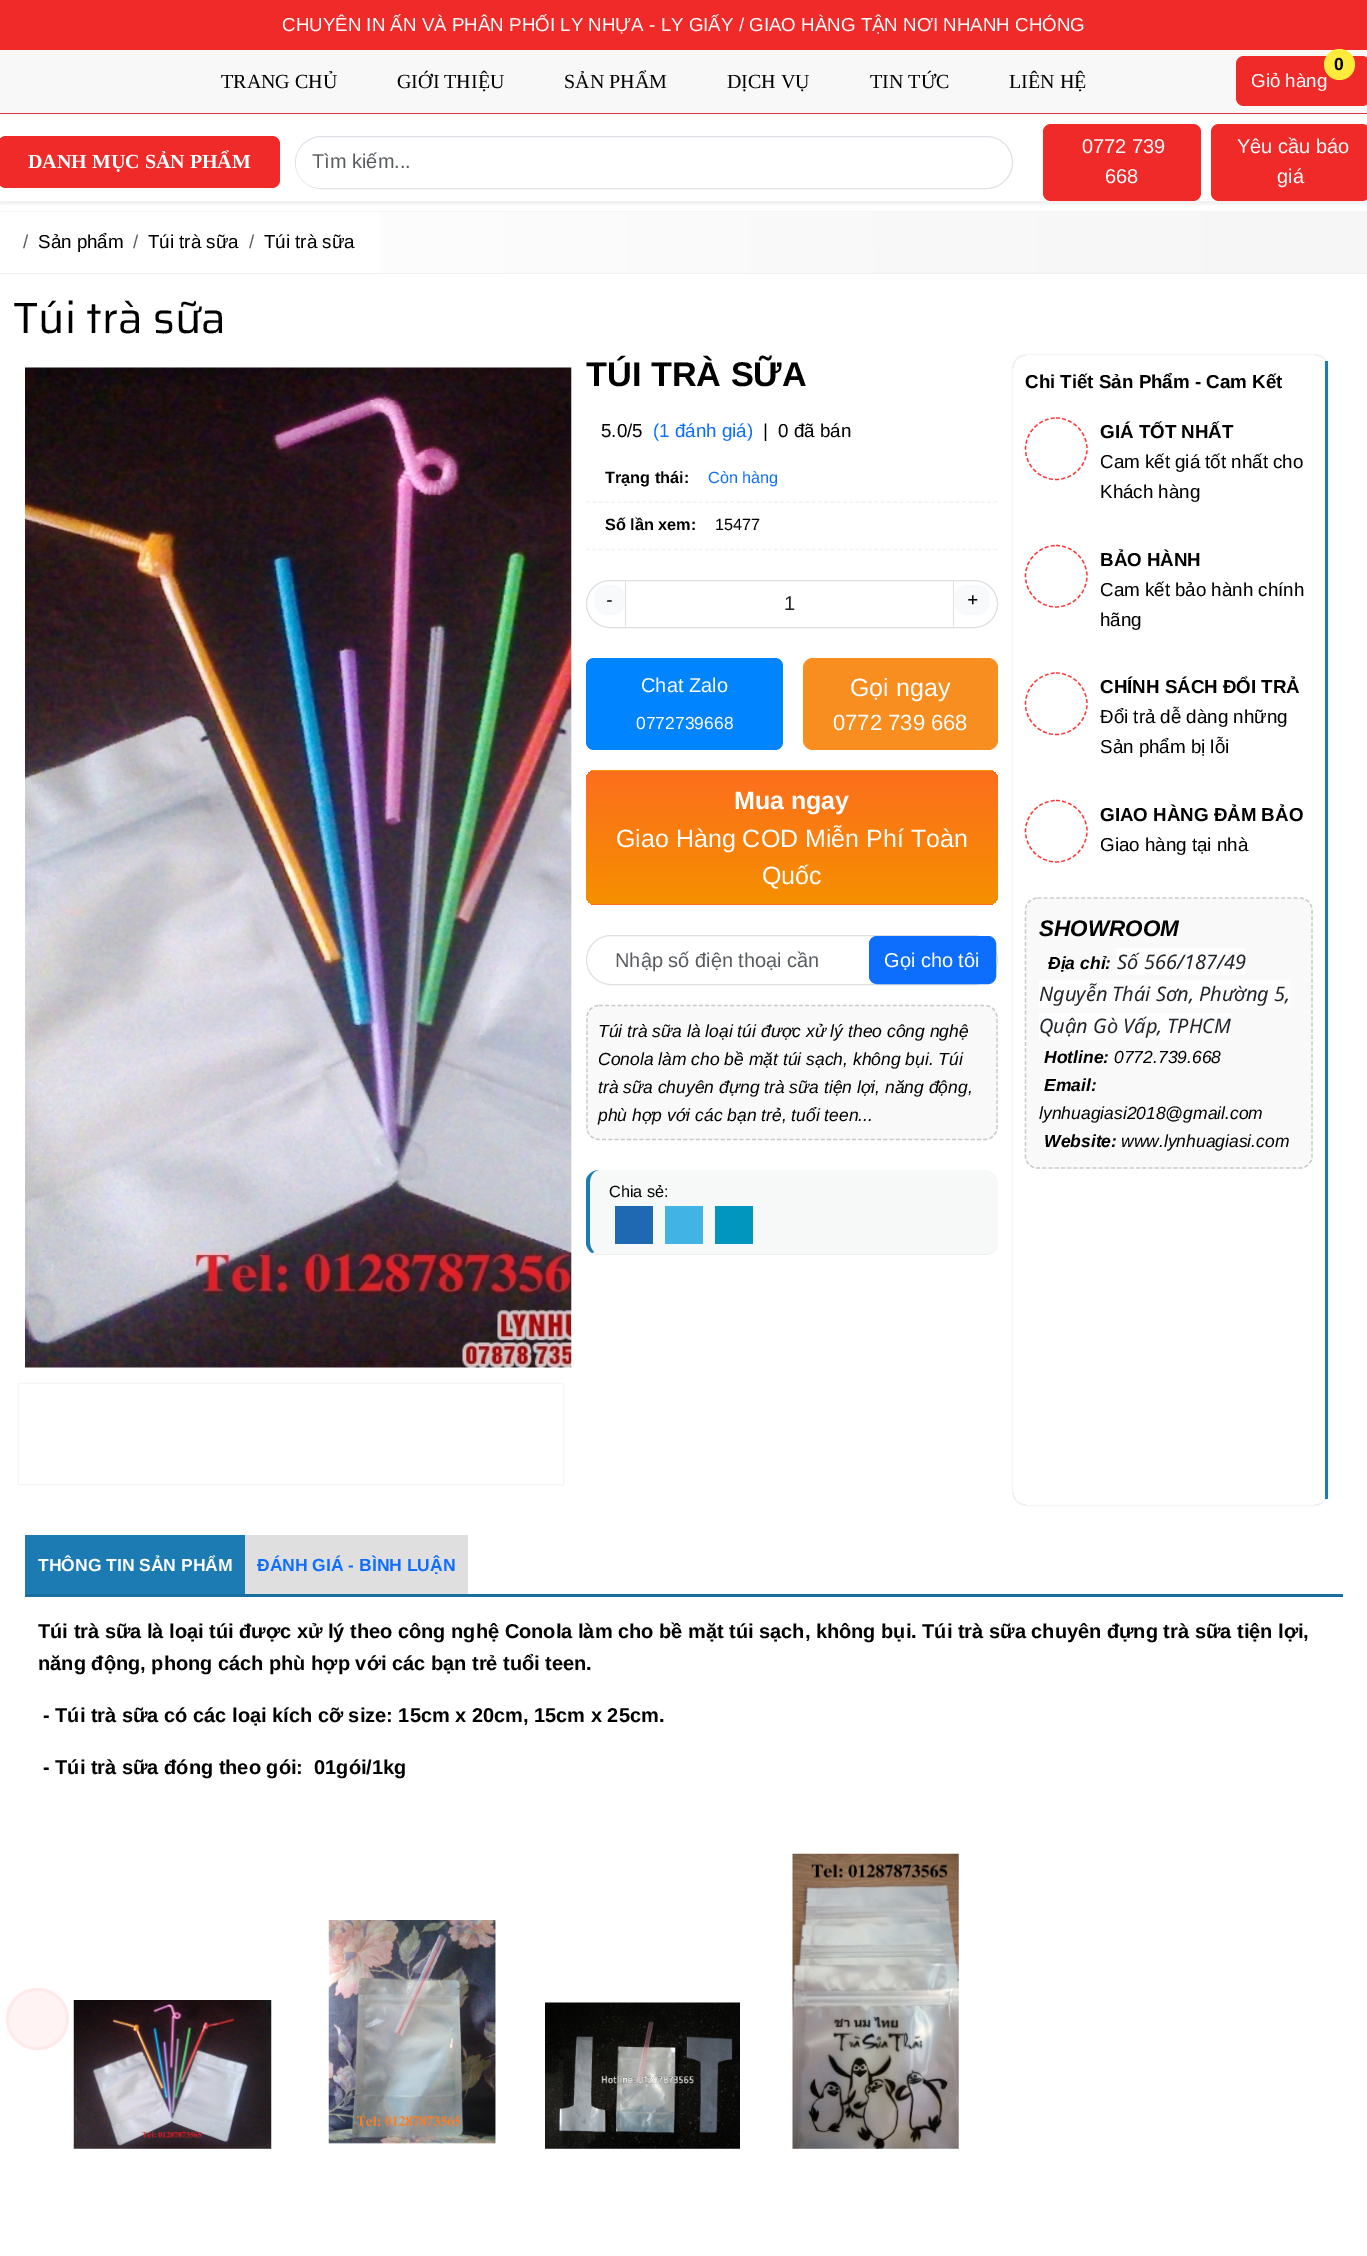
%!PS-Adobe-3.0
%%BoundingBox: 0 0 1367 2256
%%LanguageLevel: 3
%%Pages: 1
%%EndComments
%%BeginProlog
/setink { dup -16 bitshift 255 div exch dup -8 bitshift 255 and 255 div exch 255 and 255 div setrgbcolor } def
/usefont { [ exch dup neg 0 0 3 -1 roll 0 0 ] selectfont } def
/setalpha { dup .setfillconstantalpha .setstrokeconstantalpha } def
/disc { newpath 0 360 arc closepath } def
/rrect { 5 dict begin { /r /h /w /y /x } { exch def } forall
  x r add y moveto x w add y 2 copy h add r arct x w add y h add x 1 index r arct
  x y h add x y r arct x y 2 copy exch w add exch r arct closepath end } def
/softshadow { 12 dict begin { /a /b /q /h /w /y /x } { exch def } forall gsave /was 0 def
  9 -2 -9 { dup b mul 4 div /e exch def 1 sub .425 mul 2.718 exch exp 1 add a .99 .min exch div /now exch def
    1 1 now sub 1 was sub div sub setalpha /was now def
    w h .min e 2 mul add 0 gt { x e sub y e sub w e 2 mul add h e 2 mul add
      q e add b .6 mul add w h .min 2 div e add .min 0 .max rrect fill } if } for grestore end } def
/drawimage { 5 dict begin { /h /w /y /x /name } { exch def } forall
  gsave x y translate w h scale
  w h 8 [w 0 0 h 0 0] name (r) file false 3 colorimage grestore end } def
%%EndProlog
%%BeginSetup
<< /PageSize [1367 2256] /PageUsesTransparency true >> setpagedevice
%%EndSetup
%%Page: 1 1
0 .pushpdf14devicefilter
0 2256 translate 1 -1 scale
4 setmiterlimit
16#FFFFFF setink
0 0 1367 2256 rectfill
16#F02929 setink
0 0 1367 50 rectfill
/LiberationSans-Regular 18.75 usefont
16#FFFFFF setink
282 31 moveto (CHUYÊN IN ẤN VÀ PHÂN PHỐI LY NHỰA - LY GIẤY / GIAO HÀNG TẬN NƠI NHANH CHÓNG) show
16#F8F8F8 setink
0 50 1367 63 rectfill
/LiberationSerif-Regular 20 usefont
16#000000 setink
[
    [(TRANG CHỦ) 221 88]
    [(GIỚI THIỆU) 397 88]
    [(SẢN PHẨM) 564 88]
    [(DỊCH VỤ) 727 88]
    [(TIN TỨC) 870 88]
    [(LIÊN HỆ) 1009 88]
] { aload pop moveto show } forall
16#F02929 setink
1236 56 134 50 8 rrect fill
/LiberationSans-Regular 18.75 usefont
16#FFFFFF setink
1251 87 moveto (Giỏ hàng) show
16#FFEB3B setink
1339.5 64.5 15.5 disc fill
/LiberationSans-Bold 17.5 usefont
16#000000 setink
1334 70 moveto (0) show
gsave
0 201 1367 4 rectclip
16#212529 setink
0 115 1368 89 0 2.5 0.07 softshadow
grestore
16#DC3545 setink
0 113 1367 1 rectfill
16#F02929 setink
-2 136 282 52 8 rrect fill
/LiberationSerif-Bold 20 usefont
16#FFFFFF setink
28 168 moveto (DANH MỤC SẢN PHẨM) show
16#DEE2E6 setink
295.5 136.5 717 52 26 rrect stroke
16#FFFFFF setink
321 138 moveto 970 138 lineto 970 188 lineto 321 188 lineto 307 188 296 177 296 163 curveto 296 149 307 138 321 138 curveto closepath fill
/LiberationSans-Regular 20 usefont
16#595C5F setink
312 168 moveto (Tìm kiếm...) show
16#F02929 setink
1043 124 158 77 8 rrect fill
16#FFFFFF setink
1082 153 moveto (0772 739) show
1105 183 moveto (668) show
16#F02929 setink
1211 124 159 77 8 rrect fill
16#FFFFFF setink
1237 153 moveto (Yêu cầu báo) show
1277 183 moveto (giá) show
gsave 380 212 moveto 1367 212 lineto 1367 273 lineto 380 273 lineto closepath clip newpath
<< /ShadingType 2 /ColorSpace /DeviceRGB /Coords [0 243 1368 242] /Extend [true true] /Function << /FunctionType 2 /Domain [0 1] /C0 [1 1 1] /C1 [0.965 0.965 0.965] /N 1 >> >> shfill grestore
16#F5F5F5 setink
0 211 1367 1 rectfill
16#F0F0F0 setink
0 273 1367 1 rectfill
/LiberationSans-Regular 18.75 usefont
16#595C5F setink
23 248 moveto (/) show
16#000000 setink
38 248 moveto (Sản phẩm) show
16#595C5F setink
133 248 moveto (/) show
16#000000 setink
148 248 moveto (Túi trà sữa) show
16#595C5F setink
249 248 moveto (/) show
16#000000 setink
264 248 moveto (Túi trà sữa) show
/Saira-Regular 43.75 usefont
13 333 moveto (Túi trà sữa) show
(img1.raw) 25 367 547 1001 drawimage
gsave
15 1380 moveto 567 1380 lineto 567 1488 lineto 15 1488 lineto closepath 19 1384 moveto 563 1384 lineto 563 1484 lineto 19 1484 lineto closepath eoclip newpath
16#DFDFDF setink
19 1384 544 100 0 1 1 softshadow
grestore
/LiberationSans-Bold 34.25 usefont
586 386 moveto (TÚI TRÀ SỮA) show
/LiberationSans-Regular 18.75 usefont
601 437 moveto (5.0/5) show
16#0D6EFD setink
653 437 moveto (\(1 đánh giá\)) show
16#000000 setink
763 437 moveto (|) show
778 437 moveto (0 đã bán) show
16#F2F2F2 setink
1.2 setlinewidth
[3.75 2.52] 0 setdash
586 502 moveto 997.5 502 lineto stroke
/LiberationSans-Bold 16.25 usefont
16#000000 setink
605 483 moveto (Trạng thái:) show
/LiberationSans-Regular 16.25 usefont
16#0D6EFD setink
708 483 moveto (Còn hàng) show
16#F2F2F2 setink
586 549.5 moveto 997.5 549.5 lineto stroke
/LiberationSans-Bold 16.25 usefont
16#000000 setink
605 530 moveto (Số lần xem:) show
/LiberationSans-Regular 16.25 usefont
715 530 moveto (15477) show
16#DFDFDF setink
1 setlinewidth
[] 0 setdash
586.5 580.5 411 47 23.5 rrect stroke
16#F8F9FA setink
594 585 31 30 13 rrect fill
/LiberationSans-Italic 18.75 usefont
16#000000 setink
606 606 moveto (-) show
16#DEE2E6 setink
953 581 1 45 rectfill
625 581 1 45 rectfill
/LiberationSans-Regular 20 usefont
16#212529 setink
784 610 moveto (1) show
16#F8F9FA setink
954 585 36 30 13 rrect fill
/LiberationSans-Italic 18.75 usefont
16#000000 setink
967 606 moveto (+) show
16#0084FF setink
586 658 197 92 8 rrect fill
/LiberationSans-Regular 20 usefont
16#FFFFFF setink
641 692 moveto (Chat Zalo) show
/LiberationSans-Regular 17.5 usefont
636 729 moveto (0772739668) show
16#F88E20 setink
803 658 195 92 10 rrect fill
/LiberationSans-Regular 25 usefont
16#FFFFFF setink
850 696 moveto (Gọi ngay) show
/LiberationSans-Regular 22 usefont
833 730 moveto (0772 739 668) show
gsave
586 770 412 135 10 rrect clip newpath
gsave 586 770 moveto 998 770 lineto 998 771 lineto 586 771 lineto closepath clip newpath
<< /ShadingType 2 /ColorSpace /DeviceRGB /Coords [792 639 792 771] /Extend [true true] /Function << /FunctionType 2 /Domain [0 1] /C0 [0.992 0.431 0.114] /C1 [0.961 0.565 0] /N 1 >> >> shfill grestore
gsave 586 771 moveto 998 771 lineto 998 904 lineto 586 904 lineto closepath clip newpath
<< /ShadingType 2 /ColorSpace /DeviceRGB /Coords [792 771 792 904] /Extend [true true] /Function << /FunctionType 2 /Domain [0 1] /C0 [0.992 0.431 0.114] /C1 [0.961 0.565 0] /N 1 >> >> shfill grestore
gsave 586 904 moveto 998 904 lineto 998 905 lineto 586 905 lineto closepath clip newpath
<< /ShadingType 2 /ColorSpace /DeviceRGB /Coords [792 904 792 1036] /Extend [true true] /Function << /FunctionType 2 /Domain [0 1] /C0 [0.992 0.431 0.114] /C1 [0.961 0.565 0] /N 1 >> >> shfill grestore
grestore
/LiberationSans-Bold 25 usefont
734 809 moveto (Mua ngay) show
/LiberationSans-Regular 25 usefont
616 847 moveto (Giao Hàng COD Miễn Phí Toàn) show
762 884 moveto (Quốc) show
16#DFDFDF setink
586.5 935.5 411 49 24.5 rrect stroke
/LiberationSans-Regular 20 usefont
16#595C5F setink
615 967 moveto (Nhập số điện thoại cần) show
16#0D6EFD setink
869.5 936.5 126 47 7.5 rrect gsave fill grestore
stroke
16#FFFFFF setink
884 967 moveto (Gọi cho tôi) show
16#F9F9F9 setink
586 1005 412 135 13 rrect fill
16#C9C9C9 setink
1.2 setlinewidth
[3.75 2.5] 0 setdash
599 1005.5 moveto 985 1005.5 lineto 991.5 1005.5 997 1011 997 1017.5 curveto 997 1127.5 lineto 997 1134 991.5 1139.5 985 1139.5 curveto 599 1139.5 lineto 592 1139.5 587 1134 587 1127.5 curveto 587 1017.5 lineto 587 1011 592 1005.5 599 1005.5 curveto closepath stroke
/LiberationSans-Italic 17.5 usefont
16#000000 setink
[
    [(Túi trà sữa là loại túi được xử lý theo công nghệ) 598 1037]
    [(Conola làm cho bề mặt túi sạch, không bụi. Túi) 598 1065]
    [(trà sữa chuyên đựng trà sữa tiện lợi, năng động,) 598 1093]
    [(phù hợp với các bạn trẻ, tuổi teen...) 598 1121]
] { aload pop moveto show } forall
16#F7F8F8 setink
586 1170 412 85 13 rrect fill
16#EDEEEE setink
599 1255 moveto 985 1255 lineto 991 1255 996 1251 998 1245 curveto 996 1251 991 1254 985 1254 curveto 599 1254 lineto 597 1254 596 1253 594 1252 curveto 592 1253 lineto 594 1254 597 1255 599 1255 curveto closepath fill
16#1C7BB3 setink
599 1170 moveto 594 1170 590 1176 590 1182 curveto 590 1242 lineto 590 1247 592 1250 594 1252 curveto 592 1253 lineto 589 1251 587 1248 586 1244 curveto 586 1180 lineto 587 1175 593 1170 599 1170 curveto closepath fill
/LiberationSans-Regular 16.25 usefont
16#000000 setink
609 1197 moveto (Chia sẻ:) show
[
    [615 1206 38 38 16#1F69B2]
    [665 1206 38 38 16#41B4E3]
    [715 1206 38 38 16#0196BE]
] { aload pop setink rectfill } forall
gsave
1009 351 moveto 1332 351 lineto 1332 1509 lineto 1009 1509 lineto closepath 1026 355 moveto 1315 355 lineto 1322 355 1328 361 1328 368 curveto 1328 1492 lineto 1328 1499 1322 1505 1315 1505 curveto 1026 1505 lineto 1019 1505 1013 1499 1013 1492 curveto 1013 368 lineto 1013 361 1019 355 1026 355 curveto closepath eoclip newpath
16#DFDFDF setink
1013 355 315 1150 13 1 1 softshadow
grestore
16#1C7BB3 setink
1325 361 3 1138 rectfill
/LiberationSans-Bold 18.75 usefont
16#000000 setink
1025 388 moveto (Chi Tiết Sản Phẩm - Cam Kết) show
16#FF3333 setink
1056 418 moveto 1073 418 1087 432 1087 449 curveto 1087 465.5 1073 479.5 1056 479.5 curveto 1039.5 479.5 1025.5 465.5 1025.5 449 curveto 1025.5 432 1039.5 418 1056 418 curveto closepath stroke
16#000000 setink
1100 438 moveto (GIÁ TỐT NHẤT) show
/LiberationSans-Regular 18.75 usefont
1100 468 moveto (Cam kết giá tốt nhất cho) show
1100 498 moveto (Khách hàng) show
16#FF3333 setink
1056 545.5 moveto 1073 545.5 1087 559.5 1087 576 curveto 1087 593 1073 607 1056 607 curveto 1039.5 607 1025.5 593 1025.5 576 curveto 1025.5 559.5 1039.5 545.5 1056 545.5 curveto closepath stroke
/LiberationSans-Bold 18.75 usefont
16#000000 setink
1100 566 moveto (BẢO HÀNH) show
/LiberationSans-Regular 18.75 usefont
1100 596 moveto (Cam kết bảo hành chính) show
1100 626 moveto (hãng) show
16#FF3333 setink
1056 673 moveto 1073 673 1087 687 1087 704 curveto 1087 720.5 1073 734.5 1056 734.5 curveto 1039.5 734.5 1025.5 720.5 1025.5 704 curveto 1025.5 687 1039.5 673 1056 673 curveto closepath stroke
/LiberationSans-Bold 18.75 usefont
16#000000 setink
1100 693 moveto (CHÍNH SÁCH ĐỔI TRẢ) show
/LiberationSans-Regular 18.75 usefont
1100 723 moveto (Đổi trả dễ dàng những) show
1100 753 moveto (Sản phẩm bị lỗi) show
16#FF3333 setink
1056 800.5 moveto 1073 800.5 1087 814.5 1087 831 curveto 1087 848 1073 862 1056 862 curveto 1039.5 862 1025.5 848 1025.5 831 curveto 1025.5 814.5 1039.5 800.5 1056 800.5 curveto closepath stroke
/LiberationSans-Bold 18.75 usefont
16#000000 setink
1100 821 moveto (GIAO HÀNG ĐẢM BẢO) show
/LiberationSans-Regular 18.75 usefont
1100 851 moveto (Giao hàng tại nhà) show
16#F9F9F9 setink
1025 898 288 271 13 rrect fill
16#C9C9C9 setink
1037.5 898 moveto 1300 898 lineto 1306.5 898 1312 903.5 1312 910 curveto 1312 1156 lineto 1312 1163 1306.5 1168 1300 1168 curveto 1037.5 1168 lineto 1031 1168 1025.5 1163 1025.5 1156 curveto 1025.5 910 lineto 1025.5 903.5 1031 898 1037.5 898 curveto closepath stroke
/LiberationSans-BoldItalic 22.5 usefont
16#000000 setink
1039 936 moveto (SHOWROOM) show
/LiberationSans-BoldItalic 17.5 usefont
1048 969 moveto (Địa chỉ:) show
16#FFFFFF setink
1116 948 129 27 rectfill
/NotoSans-Italic 20 usefont
16#212529 setink
1117 969 moveto (Số 566/187/49) show
16#FFFFFF setink
1039 980 251 28 rectfill
16#212529 setink
1039 1001 moveto (Nguyễn Thái Sơn, Phường 5,) show
16#FFFFFF setink
1039 1013 192 27 rectfill
16#212529 setink
1039 1033 moveto (Quận Gò Vấp, TPHCM) show
/LiberationSans-BoldItalic 17.5 usefont
16#000000 setink
1044 1063 moveto (Hotline:) show
/LiberationSans-Italic 17.5 usefont
1114 1063 moveto (0772.739.668) show
/LiberationSans-BoldItalic 17.5 usefont
1044 1091 moveto (Email:) show
/LiberationSans-Italic 17.5 usefont
1039 1119 moveto (lynhuagiasi2018@gmail.com) show
/LiberationSans-BoldItalic 17.5 usefont
1044 1147 moveto (Website:) show
/LiberationSans-Italic 17.5 usefont
1121 1147 moveto (www.lynhuagiasi.com) show
16#196EA0 setink
25 1594 1318 3 rectfill
16#1C7BB3 setink
25 1535 220 59 rectfill
/LiberationSans-Bold 17.5 usefont
16#FFFFFF setink
38 1571 moveto (THÔNG TIN SẢN PHẨM) show
16#DFDFDF setink
245 1535 223 59 rectfill
16#0D6EFD setink
257 1571 moveto (ĐÁNH GIÁ - BÌNH LUẬN) show
/LiberationSans-Bold 20 usefont
16#000000 setink
[
    [(Túi trà sữa là loại túi được xử lý theo công nghệ Conola làm cho bề mặt túi sạch, không bụi. Túi trà sữa chuyên đựng trà sữa tiện lợi,) 38 1638]
    [(năng động, phong cách phù hợp với các bạn trẻ tuổi teen.) 38 1670]
    [(- Túi trà sữa có các loại kích cỡ size: 15cm x 20cm, 15cm x 25cm.) 43 1722]
    [(- Túi trà sữa đóng theo gói:  01gói/1kg) 43 1774]
] { aload pop moveto show } forall
(img2.raw) 73 2000 199 149 drawimage
(img3.raw) 328 1920 168 225 drawimage
(img4.raw) 545 2002 195 147 drawimage
(img5.raw) 792 1853 167 296 drawimage
16#FFF3F3 setink
7.5 1989.5 60 59 29.5 rrect gsave fill grestore
16#FFE9E9 setink
3 setlinewidth
[] 0 setdash
stroke
.poppdf14devicefilter showpage
%%EOF
